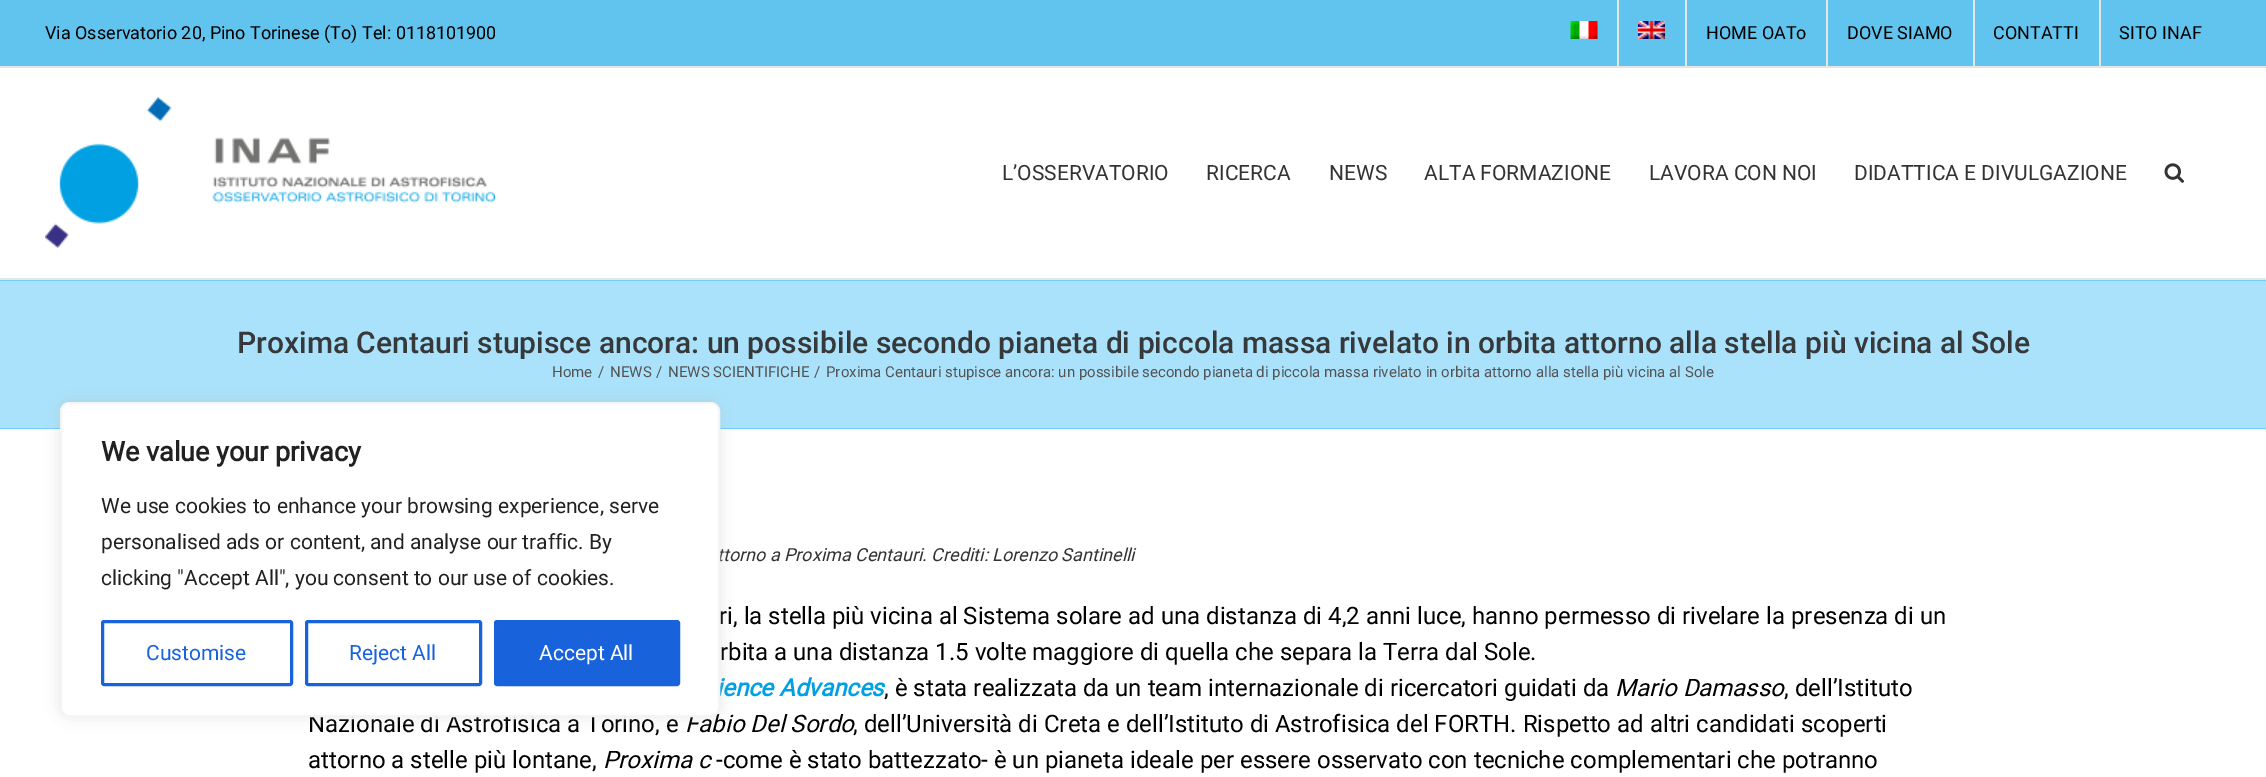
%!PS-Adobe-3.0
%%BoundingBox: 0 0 2266 777
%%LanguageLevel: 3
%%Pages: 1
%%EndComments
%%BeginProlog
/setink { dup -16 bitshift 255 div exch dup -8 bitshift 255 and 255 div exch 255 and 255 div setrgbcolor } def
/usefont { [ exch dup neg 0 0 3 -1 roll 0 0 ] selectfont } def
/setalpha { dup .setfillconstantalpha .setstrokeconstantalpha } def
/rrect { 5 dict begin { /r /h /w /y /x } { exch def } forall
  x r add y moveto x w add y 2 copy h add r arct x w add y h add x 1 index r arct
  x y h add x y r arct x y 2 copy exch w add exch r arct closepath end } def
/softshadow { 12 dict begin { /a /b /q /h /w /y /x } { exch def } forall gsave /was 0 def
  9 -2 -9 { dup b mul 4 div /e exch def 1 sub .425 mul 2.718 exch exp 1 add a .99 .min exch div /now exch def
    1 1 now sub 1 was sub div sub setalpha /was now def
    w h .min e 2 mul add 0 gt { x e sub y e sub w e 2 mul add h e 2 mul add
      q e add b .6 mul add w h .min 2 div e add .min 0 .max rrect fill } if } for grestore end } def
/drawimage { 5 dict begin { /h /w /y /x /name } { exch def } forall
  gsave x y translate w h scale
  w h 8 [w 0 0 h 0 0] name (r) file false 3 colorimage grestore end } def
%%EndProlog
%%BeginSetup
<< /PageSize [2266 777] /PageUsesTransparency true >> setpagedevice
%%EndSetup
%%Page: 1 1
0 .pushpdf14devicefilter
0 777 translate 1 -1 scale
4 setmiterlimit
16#FFFFFF setink
0 0 2266 777 rectfill
16#61C4EE setink
0 0 2266 66 rectfill
16#E5E5E5 setink
0 66 2266 2 rectfill
/Roboto-Regular 18 usefont
16#000000 setink
45 39 moveto (Via Osservatorio 20, Pino Torinese \(To\) Tel: 0118101900) show
(img1.raw) 1570 21 28 18 drawimage
16#E5E5E5 setink
1617 0 2 66 rectfill
(img2.raw) 1638 21 27 18 drawimage
1685 0 2 66 rectfill
16#000000 setink
1706 39 moveto (HOME OATo) show
16#E5E5E5 setink
1826 0 2 66 rectfill
16#000000 setink
1847 39 moveto (DOVE SIAMO) show
16#E5E5E5 setink
1973 0 2 66 rectfill
16#000000 setink
1993 39 moveto (CONTATTI) show
16#E5E5E5 setink
2099 0 2 66 rectfill
16#000000 setink
2119 39 moveto (SITO INAF) show
16#E5E5E5 setink
0 278 2266 2 rectfill
(img3.raw) 45 97 450 151 drawimage
/Roboto-Regular 21 usefont
16#333333 setink
[
    [(L’OSSERVATORIO) 1002 180]
    [(RICERCA) 1206 180]
    [(NEWS) 1329 180]
    [(ALTA FORMAZIONE) 1424 180]
    [(LAVORA CON NOI) 1649 180]
    [(DIDATTICA E DIVULGAZIONE) 1854 180]
] { aload pop moveto show } forall
(img4.raw) 2164 163 20 20 drawimage
[
    [0 281 2266 147 16#AAE2FC]
    [0 428 2266 1 16#71CFF9]
    [0 280 2266 1 16#71CFF9]
] { aload pop setink rectfill } forall
/Roboto-Medium 30 usefont
16#363839 setink
237 353 moveto (Proxima Centauri stupisce ancora: un possibile secondo pianeta di piccola massa rivelato in orbita attorno alla stella più vicina al Sole) show
/Roboto-Regular 15 usefont
16#545454 setink
[
    [(Home) 552 377]
    [(/) 598 377]
    [(NEWS) 610 377]
    [(/) 656 377]
    [(NEWS SCIENTIFICHE) 668 377]
    [(/) 814 377]
    [(Proxima Centauri stupisce ancora: un possibile secondo pianeta di piccola massa rivelato in orbita attorno alla stella più vicina al Sole) 826 377]
] { aload pop moveto show } forall
/Roboto-Italic 18 usefont
16#333333 setink
717 561 moveto (ttorno a Proxima Centauri. Crediti: Lorenzo Santinelli) show
/Roboto-Regular 24 usefont
16#000000 setink
719 624 moveto (ri, la stella più vicina al Sistema solare ad una distanza di 4,2 anni luce, hanno permesso di rivelare la presenza di un) show
720 660 moveto (rbita a una distanza 1.5 volte maggiore di quella che separa la Terra dal Sole.) show
/Roboto-BoldItalic 24 usefont
16#00A0E3 setink
716 696 moveto (ience Advances) show
/Roboto-Regular 24 usefont
16#000000 setink
884 696 moveto (, è stata realizzata da un team internazionale di ricercatori guidati da) show
/Roboto-Italic 24 usefont
1615 696 moveto (Mario Damasso) show
/Roboto-Regular 24 usefont
1784 696 moveto (, dell’Istituto) show
308 732 moveto (Nazionale di Astrofisica a Torino, e) show
/Roboto-Italic 24 usefont
685 732 moveto (Fabio Del Sordo) show
/Roboto-Regular 24 usefont
853 732 moveto (, dell’Università di Creta e dell’Istituto di Astrofisica del FORTH. Rispetto ad altri candidati scoperti) show
308 768 moveto (attorno a stelle più lontane,) show
/Roboto-Italic 24 usefont
603 768 moveto (Proxima c) show
/Roboto-Regular 24 usefont
716 768 moveto (-come è stato battezzato- è un pianeta ideale per essere osservato con tecniche complementari che potranno) show
16#ACABAB setink
60 401 660 315 9 7.5 0.3 softshadow
16#FFFFFF setink
61 403 658 313 8 rrect gsave fill grestore
16#F4F4F4 setink
2 setlinewidth
stroke
/Roboto-Bold 27 usefont
16#212121 setink
101 461 moveto (We value your privacy) show
/Roboto-Regular 21 usefont
[
    [(We use cookies to enhance your browsing experience, serve) 101 513]
    [(personalised ads or content, and analyse our traffic. By) 101 549]
    [(clicking "Accept All", you consent to our use of cookies.) 101 585]
] { aload pop moveto show } forall
16#1863DC setink
3 setlinewidth
102.5 621.5 189 63 1.5 rrect stroke
146 660 moveto (Customise) show
306.5 621.5 174 63 1.5 rrect stroke
349 660 moveto (Reject All) show
495.5 621.5 183 63 1.5 rrect gsave fill grestore
stroke
16#FFFFFF setink
539 660 moveto (Accept All) show
.poppdf14devicefilter showpage
%%EOF
